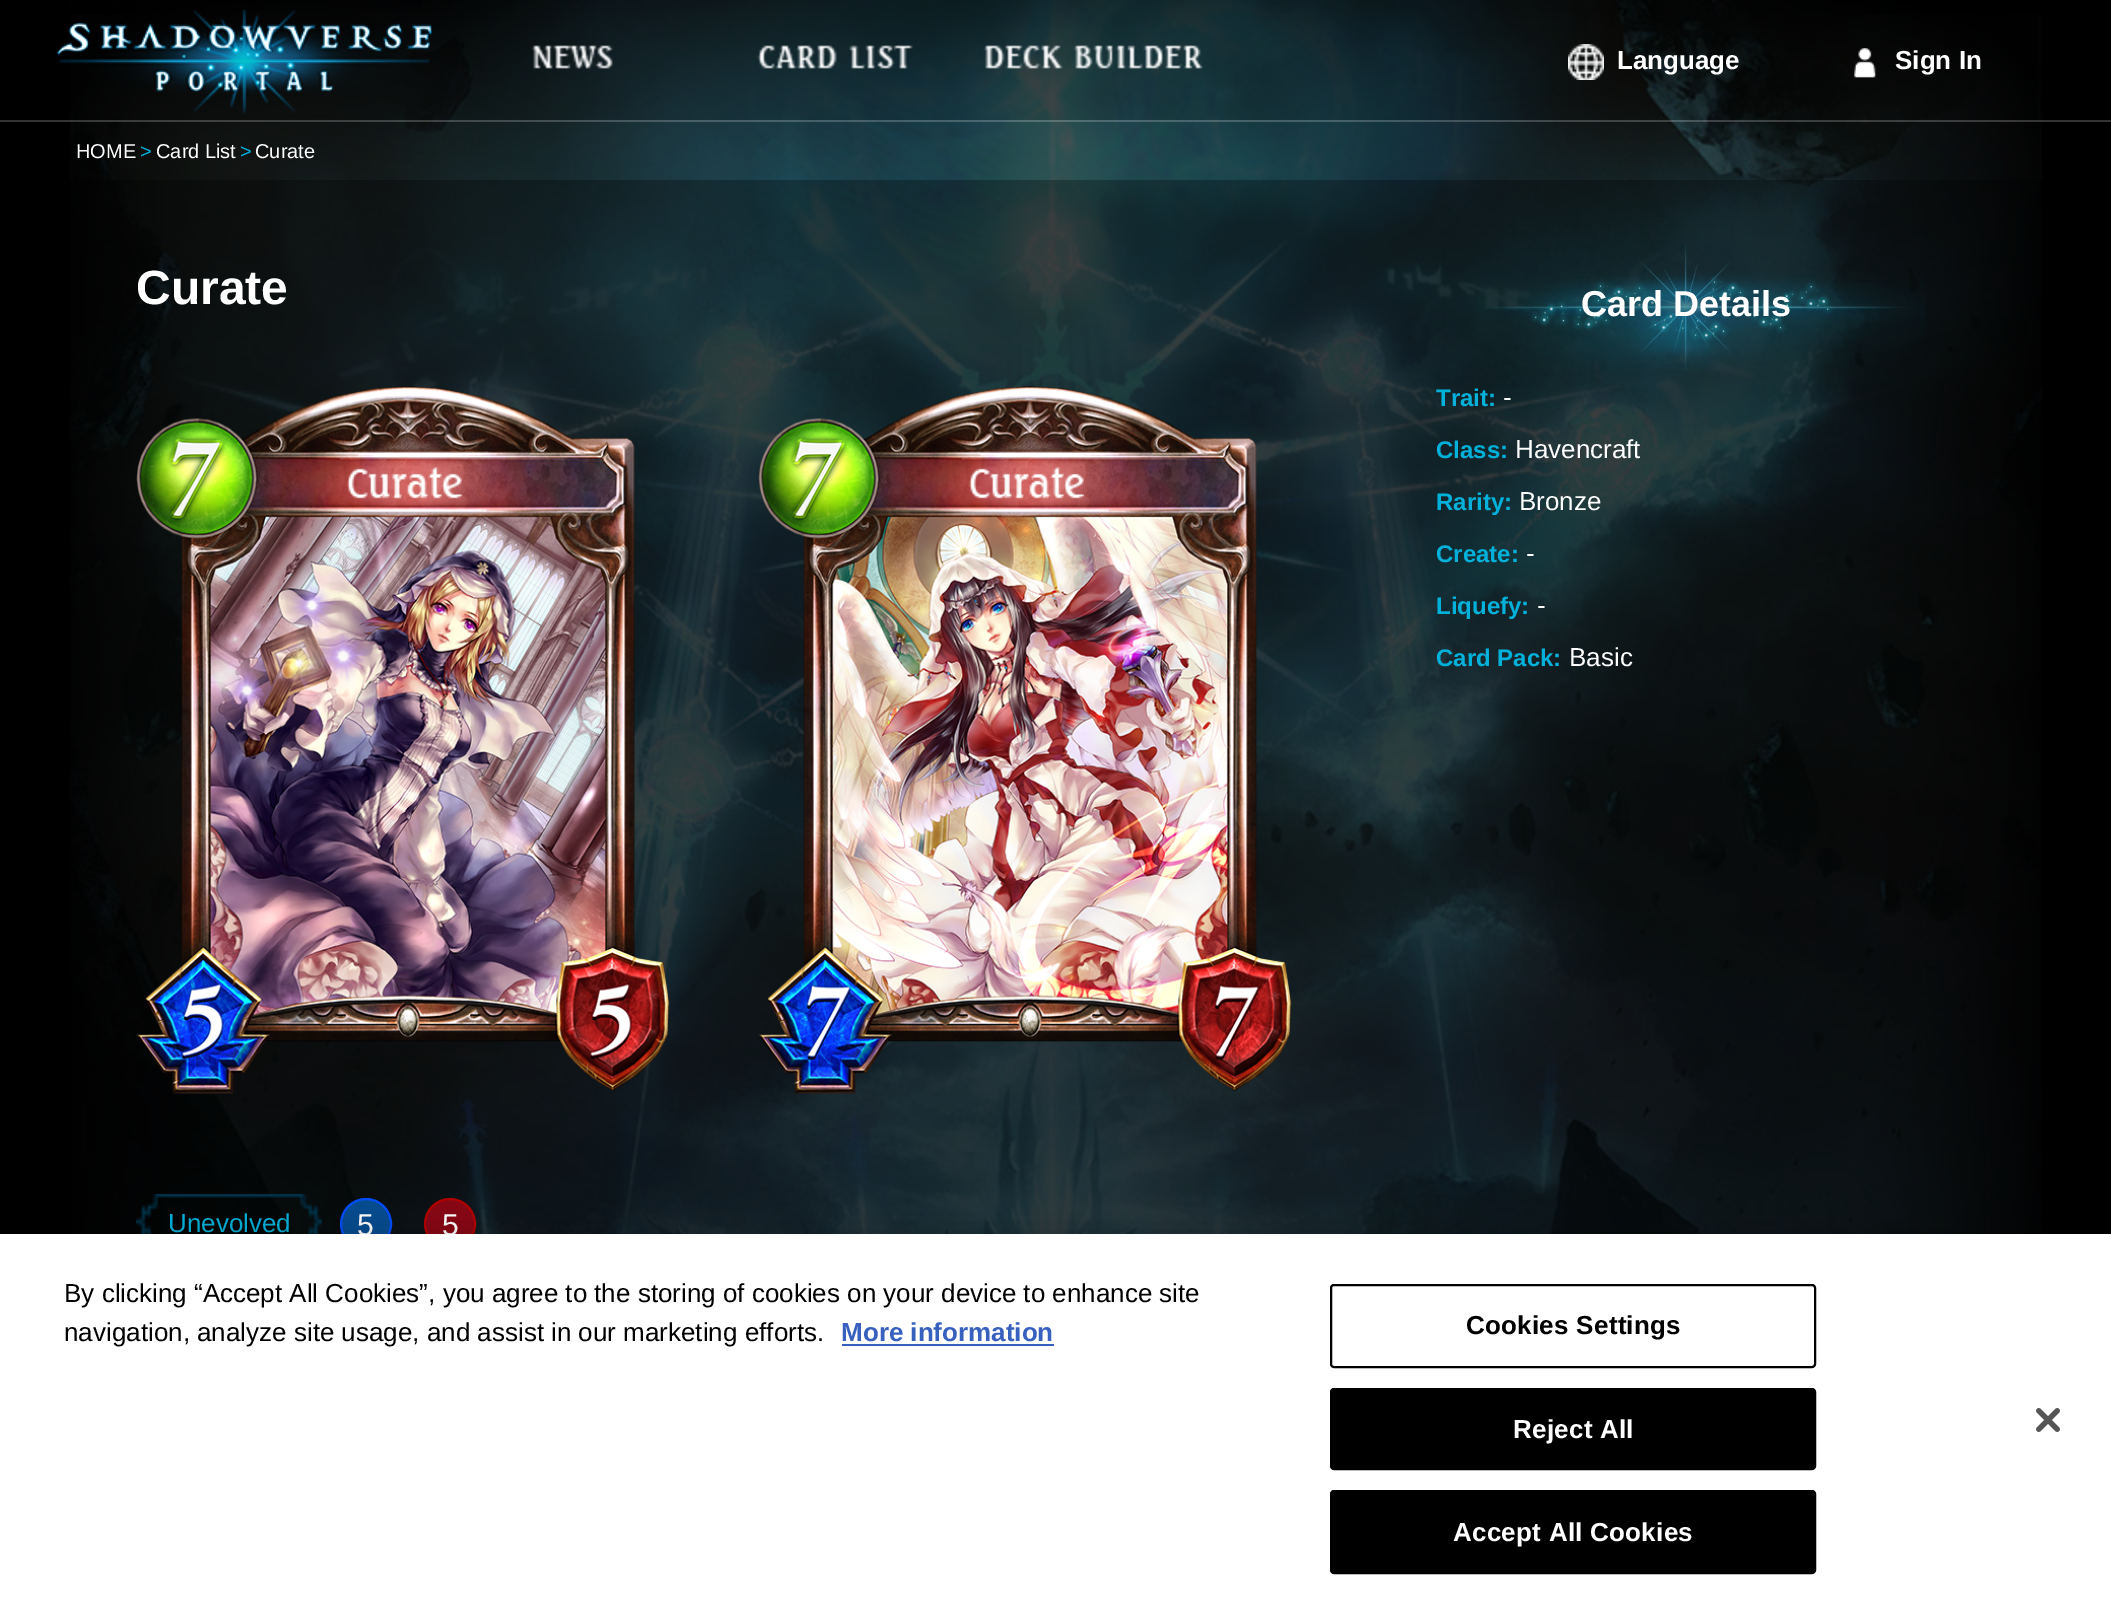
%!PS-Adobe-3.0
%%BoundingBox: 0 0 2111 1614
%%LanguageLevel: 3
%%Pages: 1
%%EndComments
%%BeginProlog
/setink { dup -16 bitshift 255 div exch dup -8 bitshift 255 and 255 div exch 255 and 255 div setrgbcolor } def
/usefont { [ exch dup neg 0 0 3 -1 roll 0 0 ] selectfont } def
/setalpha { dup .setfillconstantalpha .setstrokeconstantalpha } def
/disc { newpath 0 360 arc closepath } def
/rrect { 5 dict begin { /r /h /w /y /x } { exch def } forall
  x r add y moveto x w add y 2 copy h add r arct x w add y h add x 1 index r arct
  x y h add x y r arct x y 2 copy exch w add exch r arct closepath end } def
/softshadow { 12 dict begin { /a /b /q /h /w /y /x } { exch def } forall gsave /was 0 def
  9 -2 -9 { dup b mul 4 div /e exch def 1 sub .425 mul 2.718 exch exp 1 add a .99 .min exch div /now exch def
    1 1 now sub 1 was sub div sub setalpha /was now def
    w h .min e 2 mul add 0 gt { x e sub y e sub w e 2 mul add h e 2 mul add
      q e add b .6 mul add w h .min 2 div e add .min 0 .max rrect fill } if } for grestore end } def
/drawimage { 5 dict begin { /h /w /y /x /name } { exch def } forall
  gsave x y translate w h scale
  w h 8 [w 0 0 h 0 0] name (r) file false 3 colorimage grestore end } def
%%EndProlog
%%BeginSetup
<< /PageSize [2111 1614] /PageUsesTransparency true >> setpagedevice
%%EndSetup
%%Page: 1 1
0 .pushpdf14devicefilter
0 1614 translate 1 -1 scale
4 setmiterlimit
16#000000 setink
0 0 2111 1614 rectfill
(img7.raw) 69 0 1974 1234 drawimage
0.5 setalpha
73 0 1964 120 rectfill
1 setalpha
(img1.raw) 57 9 375 105 drawimage
(img2.raw) 531 45 82 24 drawimage
(img3.raw) 757 45 156 24 drawimage
(img4.raw) 983 45 220 24 drawimage
(img5.raw) 1568 44 36 36 drawimage
/LiberationSans-Bold 26 usefont
16#FFFFFF setink
1617 69 moveto (Language) show
(img6.raw) 1854 48 22 30 drawimage
1895 69 moveto (Sign In) show
0.43 setalpha
16#000000 setink
73 120 1967 60 rectfill
0.2 setalpha
16#FFFFFF setink
0 120 2111 2 rectfill
/LiberationSans-Regular 20 usefont
1 setalpha
76 158 moveto (HOME) show
16#01B1DA setink
140 158 moveto (>) show
16#FFFFFF setink
156 158 moveto (Card List) show
16#01B1DA setink
240 158 moveto (>) show
16#FFFFFF setink
255 158 moveto (Curate) show
0.6 setalpha
16#000000 setink
69 180 1974 1054 rectfill
/LiberationSans-Bold 48 usefont
1 setalpha
16#FFFFFF setink
136 304 moveto (Curate) show
(img8.raw) 136 386 534 708 drawimage
(img9.raw) 347 467 115 32 drawimage
(img10.raw) 758 386 534 708 drawimage
(img11.raw) 969 467 115 32 drawimage
(img12.raw) 158 1194 142 4 drawimage
(img13.raw) 136 1194 22 40 drawimage
/LiberationSans-Regular 26 usefont
16#01B1DA setink
168 1232 moveto (Unevolved) show
(img14.raw) 300 1194 22 40 drawimage
16#064D8F setink
366 1224 25 disc gsave fill grestore
16#004EFF setink
2 setlinewidth
stroke
/LiberationSans-Regular 30 usefont
16#FFFFFF setink
357 1235 moveto (5) show
16#870714 setink
450 1224 25 disc gsave fill grestore
16#B20000 setink
stroke
16#FFFFFF setink
442 1235 moveto (5) show
(img15.raw) 1478 243 447 128 drawimage
/LiberationSans-Bold 36 usefont
1581 316 moveto (Card Details) show
/LiberationSans-Bold 24 usefont
16#01B1DA setink
1436 406 moveto (Trait:) show
/LiberationSans-Regular 26 usefont
16#FFFFFF setink
1503 406 moveto (-) show
/LiberationSans-Bold 24 usefont
16#01B1DA setink
1436 458 moveto (Class:) show
/LiberationSans-Regular 26 usefont
16#FFFFFF setink
1515 458 moveto (Havencraft) show
/LiberationSans-Bold 24 usefont
16#01B1DA setink
1436 510 moveto (Rarity:) show
/LiberationSans-Regular 26 usefont
16#FFFFFF setink
1519 510 moveto (Bronze) show
/LiberationSans-Bold 24 usefont
16#01B1DA setink
1436 562 moveto (Create:) show
/LiberationSans-Regular 26 usefont
16#FFFFFF setink
1526 562 moveto (-) show
/LiberationSans-Bold 24 usefont
16#01B1DA setink
1436 614 moveto (Liquefy:) show
/LiberationSans-Regular 26 usefont
16#FFFFFF setink
1537 614 moveto (-) show
/LiberationSans-Bold 24 usefont
16#01B1DA setink
1436 666 moveto (Card Pack:) show
/LiberationSans-Regular 26 usefont
16#FFFFFF setink
1569 666 moveto (Basic) show
16#000000 setink
0 1234 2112 380 0 18 0.2 softshadow
16#FFFFFF setink
0 1234 2111 380 rectfill
16#000000 setink
64 1302 moveto (By clicking “Accept All Cookies”, you agree to the storing of cookies on your device to enhance site) show
64 1341 moveto (navigation, analyze site usage, and assist in our marketing efforts.) show
/LiberationSans-Bold 26 usefont
16#3860BE setink
841 1341 moveto (More information) show
842 1344 212 2 rectfill
16#000000 setink
1331 1285 484 82 3 rrect stroke
1466 1334 moveto 0.25 0 (Cookies Settings) ashow
1331 1389 484 80 3 rrect gsave fill grestore
stroke
16#FFFFFF setink
1513 1438 moveto 0.25 0 (Reject All) ashow
16#000000 setink
1331 1491 484 82 3 rrect gsave fill grestore
stroke
16#FFFFFF setink
1453 1541 moveto 0.25 0 (Accept All Cookies) ashow
(img16.raw) 2036 1408 24 24 drawimage
.poppdf14devicefilter showpage
%%EOF
